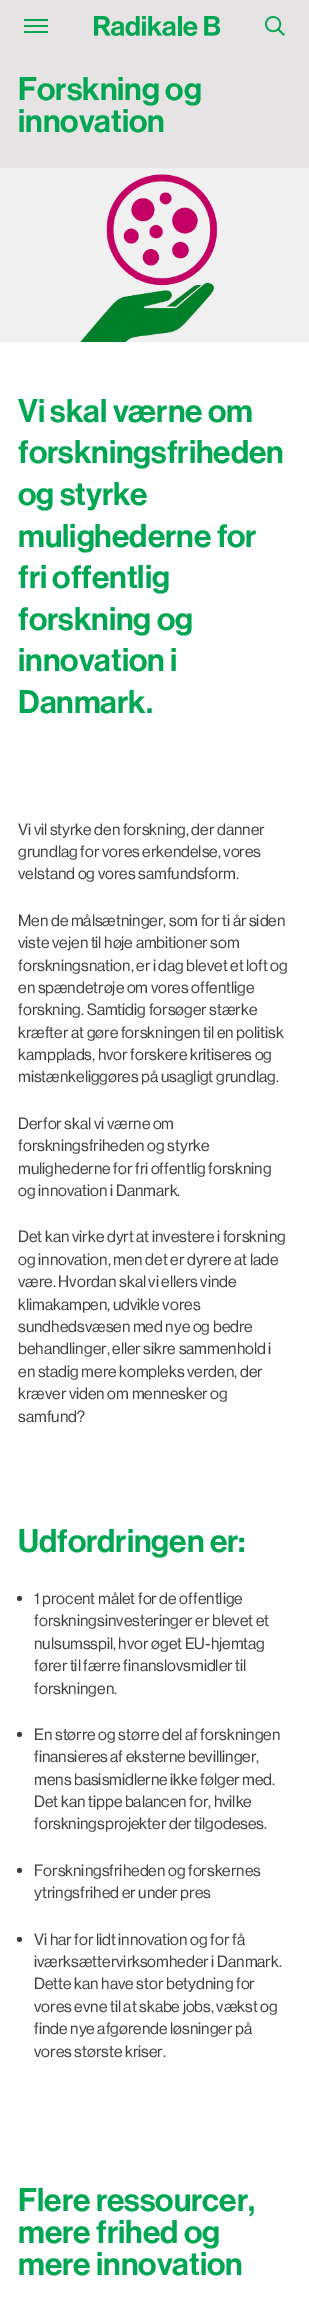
%!PS-Adobe-3.0
%%BoundingBox: 0 0 309 2309
%%LanguageLevel: 3
%%Pages: 1
%%EndComments
%%BeginProlog
/setink { dup -16 bitshift 255 div exch dup -8 bitshift 255 and 255 div exch 255 and 255 div setrgbcolor } def
/usefont { [ exch dup neg 0 0 3 -1 roll 0 0 ] selectfont } def
/disc { newpath 0 360 arc closepath } def
/drawimage { 5 dict begin { /h /w /y /x /name } { exch def } forall
  gsave x y translate w h scale
  w h 8 [w 0 0 h 0 0] name (r) file false 3 colorimage grestore end } def
%%EndProlog
%%BeginSetup
<< /PageSize [309 2309] >> setpagedevice
%%EndSetup
%%Page: 1 1
0 2309 translate 1 -1 scale
4 setmiterlimit
16#FFFFFF setink
0 0 309 2309 rectfill
16#E5E3E3 setink
0 0 309 168 rectfill
(img1.raw) 24 19 24 14 drawimage
(img2.raw) 94 16 127 20 drawimage
(img3.raw) 265 16 20 20 drawimage
/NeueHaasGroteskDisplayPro-Medium 32 usefont
16#00A651 setink
18 100 moveto (Forskning og) show
18 132 moveto (innovation) show
(img4.raw) 0 168 309 174 drawimage
[
    [(Vi skal værne om) 18 422]
    [(forskningsfriheden) 18 463]
    [(og styrke) 18 505]
    [(mulighederne for) 18 547]
    [(fri offentlig) 18 588]
    [(forskning og) 18 630]
    [(innovation i) 18 671]
    [(Danmark.) 18 713]
] { aload pop moveto show } forall
/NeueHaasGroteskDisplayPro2-Medium 16 usefont
16#3F3F3F setink
[
    [(Vi vil styrke den forskning, der danner) 18 835]
    [(grundlag for vores erkendelse, vores) 18 857]
    [(velstand og vores samfundsform.) 18 879]
    [(Men de målsætninger, som for ti år siden) 18 926]
    [(viste vejen til høje ambitioner som) 18 948]
    [(forskningsnation, er i dag blevet et loft og) 18 971]
    [(en spændetrøje om vores offentlige) 18 993]
    [(forskning. Samtidig forsøger stærke) 18 1015]
    [(kræfter at gøre forskningen til en politisk) 18 1038]
    [(kampplads, hvor forskere kritiseres og) 18 1060]
    [(mistænkeliggøres på usagligt grundlag.) 18 1082]
    [(Derfor skal vi værne om) 18 1129]
    [(forskningsfriheden og styrke) 18 1151]
    [(mulighederne for fri offentlig forskning) 18 1174]
    [(og innovation i Danmark.) 18 1196]
    [(Det kan virke dyrt at investere i forskning) 18 1242]
    [(og innovation, men det er dyrere at lade) 18 1265]
    [(være. Hvordan skal vi ellers vinde) 18 1287]
    [(klimakampen, udvikle vores) 18 1310]
    [(sundhedsvæsen med nye og bedre) 18 1332]
    [(behandlinger, eller sikre sammenhold i) 18 1354]
    [(en stadig mere kompleks verden, der) 18 1377]
    [(kræver viden om mennesker og) 18 1399]
    [(samfund?) 18 1422]
] { aload pop moveto show } forall
/NeueHaasGroteskDisplayPro-Medium 32 usefont
16#00A651 setink
18 1552 moveto (Udfordringen er:) show
16#3F3F3F setink
19.5 1598.5 2.5 disc fill
/NeueHaasGroteskDisplayPro2-Medium 16 usefont
[
    [(1 procent målet for de offentlige) 34 1604]
    [(forskningsinvesteringer er blevet et) 34 1626]
    [(nulsumsspil, hvor øget EU-hjemtag) 34 1649]
    [(fører til færre finanslovsmidler til) 34 1671]
    [(forskningen.) 34 1694]
] { aload pop moveto show } forall
19.5 1734.5 2.5 disc fill
[
    [(En større og større del af forskningen) 34 1740]
    [(finansieres af eksterne bevillinger,) 34 1762]
    [(mens basismidlerne ikke følger med.) 34 1785]
    [(Det kan tippe balancen for, hvilke) 34 1807]
    [(forskningsprojekter der tilgodeses.) 34 1829]
] { aload pop moveto show } forall
19.5 1870.5 2.5 disc fill
34 1876 moveto (Forskningsfriheden og forskernes) show
34 1898 moveto (ytringsfrihed er under pres) show
19.5 1939.5 2.5 disc fill
[
    [(Vi har for lidt innovation og for få) 34 1945]
    [(iværksættervirksomheder i Danmark.) 34 1967]
    [(Dette kan have stor betydning for) 34 1989]
    [(vores evne til at skabe jobs, vækst og) 34 2012]
    [(finde nye afgørende løsninger på) 34 2034]
    [(vores største kriser.) 34 2057]
] { aload pop moveto show } forall
/NeueHaasGroteskDisplayPro-Medium 32 usefont
16#00A651 setink
[
    [(Flere ressourcer,) 18 2211]
    [(mere frihed og) 18 2243]
    [(mere innovation) 18 2275]
] { aload pop moveto show } forall
showpage
%%EOF
